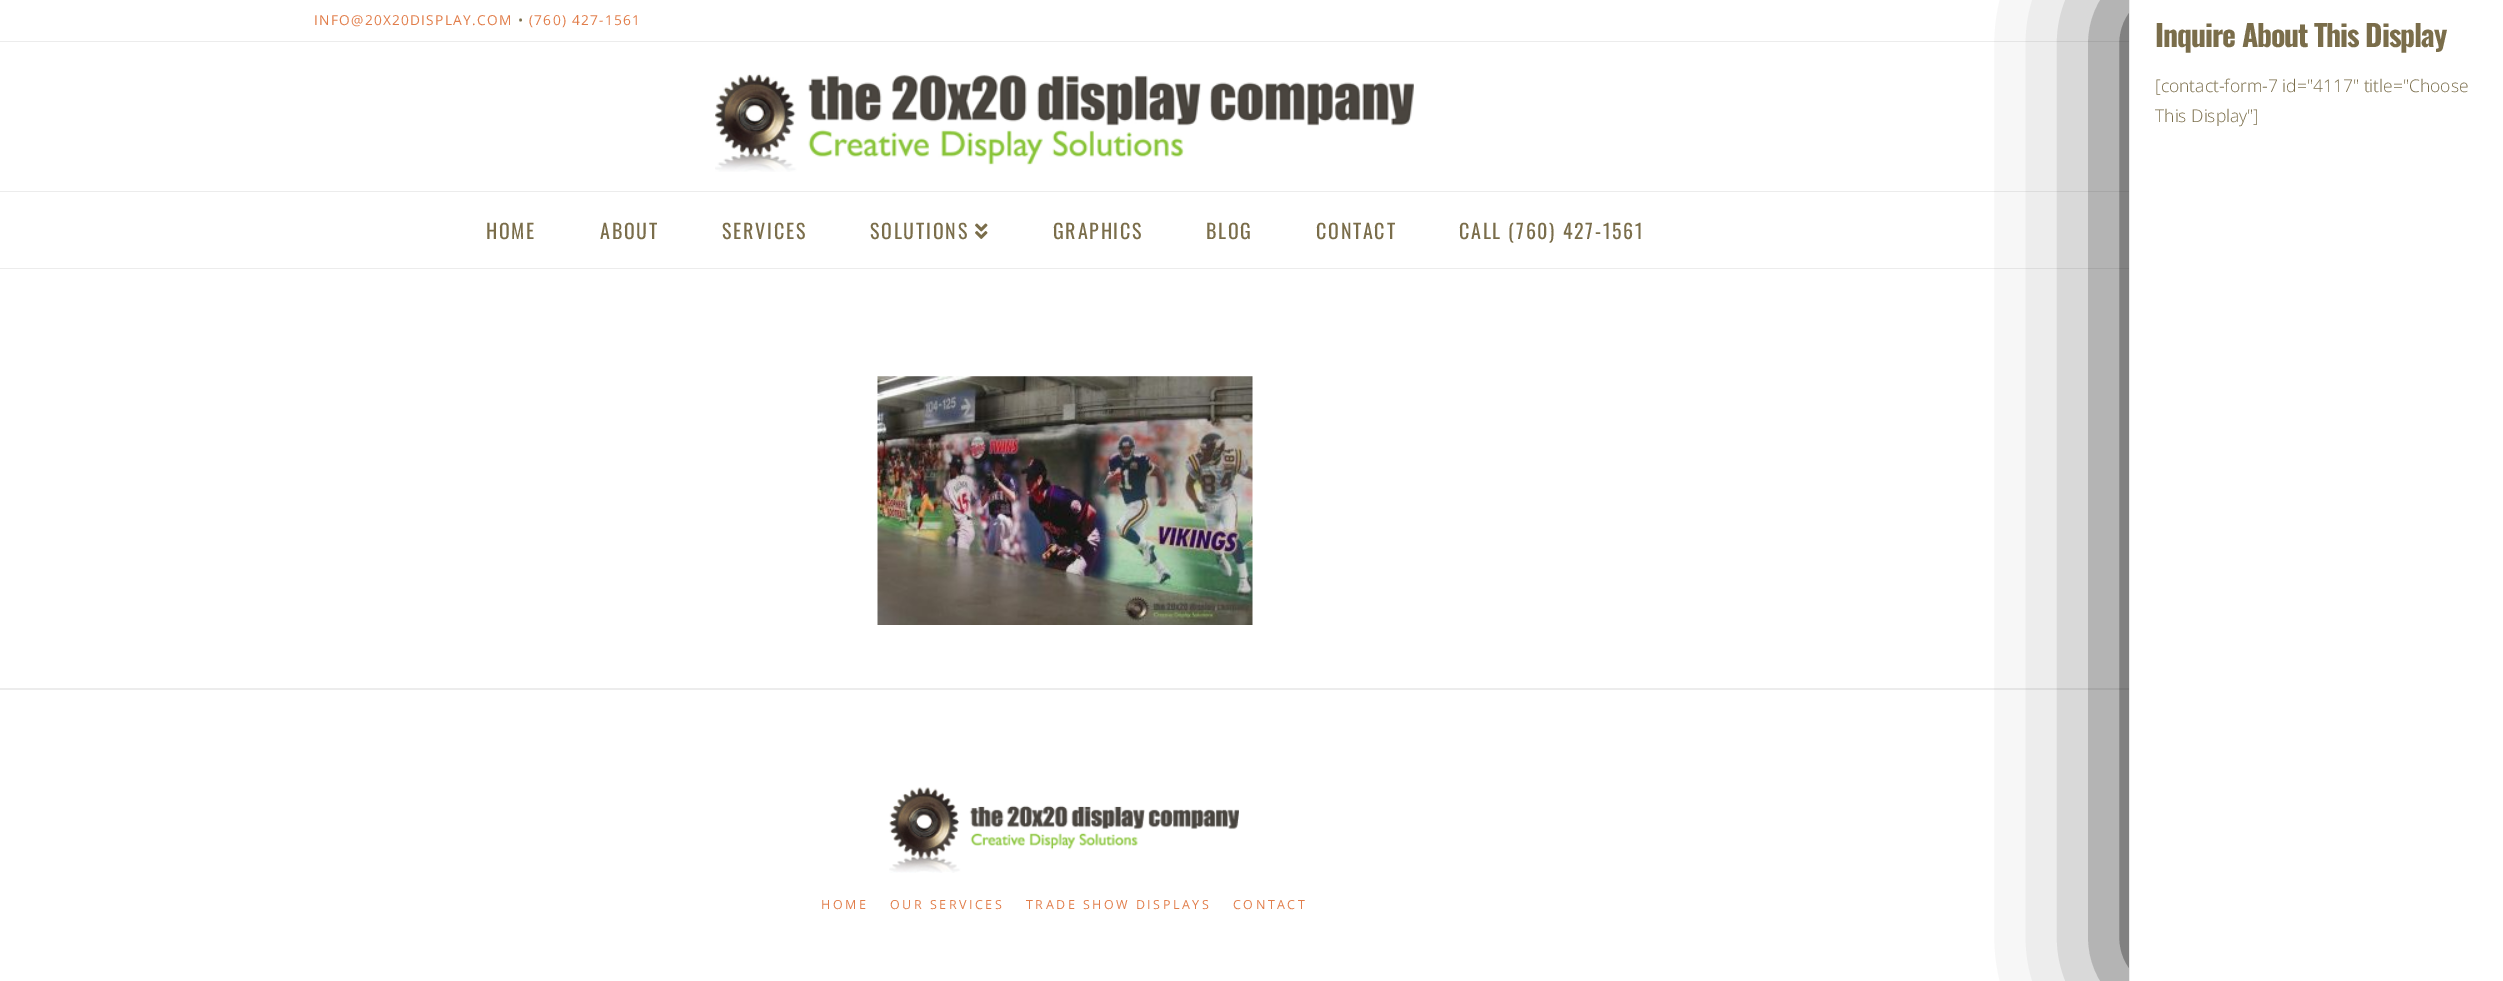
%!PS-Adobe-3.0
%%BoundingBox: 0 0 2503 981
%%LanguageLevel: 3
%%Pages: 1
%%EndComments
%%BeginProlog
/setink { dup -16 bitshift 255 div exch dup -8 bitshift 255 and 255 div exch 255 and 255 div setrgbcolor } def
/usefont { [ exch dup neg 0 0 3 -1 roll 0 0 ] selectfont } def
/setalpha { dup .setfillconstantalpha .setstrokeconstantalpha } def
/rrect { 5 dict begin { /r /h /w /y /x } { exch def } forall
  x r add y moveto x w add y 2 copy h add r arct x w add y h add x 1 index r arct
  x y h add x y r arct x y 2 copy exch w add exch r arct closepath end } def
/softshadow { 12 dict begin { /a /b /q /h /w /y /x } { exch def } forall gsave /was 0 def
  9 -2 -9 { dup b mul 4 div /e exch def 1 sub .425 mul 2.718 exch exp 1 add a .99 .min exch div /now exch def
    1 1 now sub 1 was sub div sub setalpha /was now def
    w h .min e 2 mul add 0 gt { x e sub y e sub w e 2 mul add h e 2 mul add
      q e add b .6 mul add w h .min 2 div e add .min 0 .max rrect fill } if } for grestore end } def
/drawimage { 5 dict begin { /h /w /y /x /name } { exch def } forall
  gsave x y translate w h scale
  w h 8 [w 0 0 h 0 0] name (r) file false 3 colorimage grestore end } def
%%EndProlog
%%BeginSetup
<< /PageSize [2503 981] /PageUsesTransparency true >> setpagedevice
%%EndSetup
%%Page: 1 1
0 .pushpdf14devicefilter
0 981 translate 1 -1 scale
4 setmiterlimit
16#FFFFFF setink
0 0 2503 981 rectfill
16#ECECEC setink
0 41 2129 1 rectfill
/OpenSans-Regular 13.75 usefont
16#E17D4A setink
314 25 moveto 1.25 0 (INFO@20X20DISPLAY.COM) ashow
16#7A6D4A setink
518 25 moveto 1.25 0 (•) ashow
16#E17D4A setink
529 25 moveto 1.25 0 (\(760\) 427-1561) ashow
16#ECECEC setink
0 191 2129 1 rectfill
(img1.raw) 715 73 699 99 drawimage
0 268 2129 1 rectfill
/Oswald-Regular 20 usefont
16#7A6D4A setink
486 239 moveto 1.75 0 (HOME) ashow
600 239 moveto 1.75 0 (ABOUT) ashow
722 239 moveto 1.75 0 (SERVICES) ashow
870 239 moveto 1.75 0 (SOLUTIONS) ashow
(img2.raw) 975 223 13 16 drawimage
1053 239 moveto 1.75 0 (GRAPHICS) ashow
1206 239 moveto 1.75 0 (BLOG) ashow
1316 239 moveto 1.75 0 (CONTACT) ashow
1459 239 moveto 1.75 0 (CALL \(760\) 427-1561) ashow
16#ECECEC setink
0 688 2129 2 rectfill
16#000000 setink
2135 6 363 969 0 62.5 1 softshadow
16#FFFFFF setink
2130 0 373 981 rectfill
16#ECECEC setink
2129 0 1 981 rectfill
/Oswald-Bold 29.75 usefont
16#7A6D4A setink
2155 47 moveto -1.05 0 (Inquire About This Display) ashow
/OpenSans-Light 17.5 usefont
2155 92 moveto ([contact-form-7 id="4117" title="Choose) show
2155 122 moveto (This Display"]) show
(img3.raw) 877 376 376 249 drawimage
(img4.raw) 889 787 350 86 drawimage
/OpenSans-Regular 12.5 usefont
16#E17D4A setink
821 909 moveto 2.5 0 (HOME) ashow
890 909 moveto 2.5 0 (OUR SERVICES) ashow
1026 909 moveto 2.5 0 (TRADE SHOW DISPLAYS) ashow
1233 909 moveto 2.5 0 (CONTACT) ashow
.poppdf14devicefilter showpage
%%EOF
